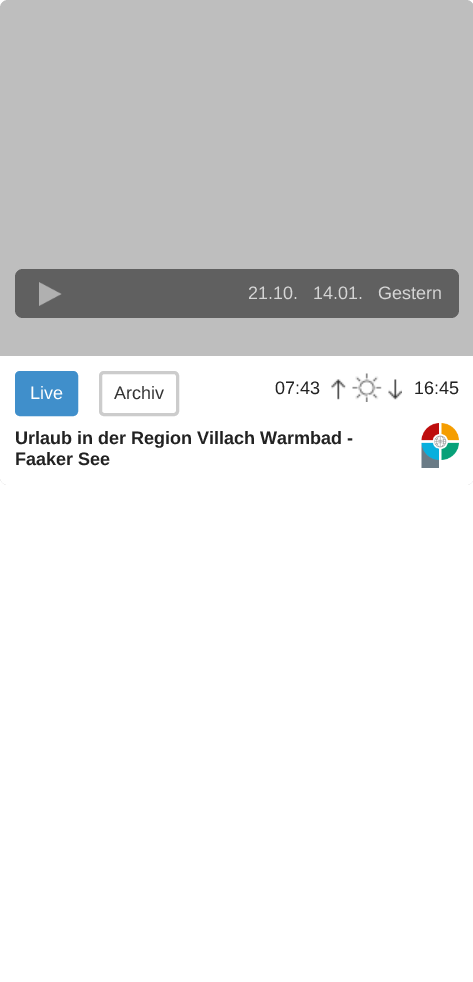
%!PS-Adobe-3.0
%%BoundingBox: 0 0 473 982
%%LanguageLevel: 3
%%Pages: 1
%%EndComments
%%BeginProlog
/setink { dup -16 bitshift 255 div exch dup -8 bitshift 255 and 255 div exch 255 and 255 div setrgbcolor } def
/usefont { [ exch dup neg 0 0 3 -1 roll 0 0 ] selectfont } def
/rrect { 5 dict begin { /r /h /w /y /x } { exch def } forall
  x r add y moveto x w add y 2 copy h add r arct x w add y h add x 1 index r arct
  x y h add x y r arct x y 2 copy exch w add exch r arct closepath end } def
/drawimage { 5 dict begin { /h /w /y /x /name } { exch def } forall
  gsave x y translate w h scale
  w h 8 [w 0 0 h 0 0] name (r) file false 3 colorimage grestore end } def
%%EndProlog
%%BeginSetup
<< /PageSize [473 982] >> setpagedevice
%%EndSetup
%%Page: 1 1
0 982 translate 1 -1 scale
4 setmiterlimit
16#FFFFFF setink
0 0 473 982 rectfill
16#BEBEBE setink
0 0 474 485 8 rrect fill
16#606060 setink
15 269 444 49 8 rrect fill
(img1.raw) 39 282 23 24 drawimage
/LiberationSans-Regular 18 usefont
16#D5D5D5 setink
[
    [(21.10.) 248 299]
    [(14.01.) 313 299]
    [(Gestern) 378 299]
] { aload pop moveto show } forall
16#FFFFFF setink
0 356 moveto 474 356 lineto 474 477 lineto 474 481.5 470.5 485 466 485 curveto 8 485 lineto 3.5 485 0 481.5 0 477 curveto closepath fill
16#408FCB setink
16.5 372.5 60 42 3.5 rrect gsave fill grestore
3 setlinewidth
stroke
16#FFFFFF setink
30 399 moveto (Live) show
16#CCCCCC setink
100.5 372.5 77 42 3.5 rrect stroke
16#333333 setink
114 399 moveto (Archiv) show
16#222222 setink
275 394 moveto (07:43) show
(img2.raw) 331 373 71 29 drawimage
414 394 moveto (16:45) show
/LiberationSans-Bold 18 usefont
15 444 moveto (Urlaub in der Region Villach Warmbad -) show
15 465 moveto (Faaker See) show
(img3.raw) 421 423 38 45 drawimage
showpage
%%EOF
